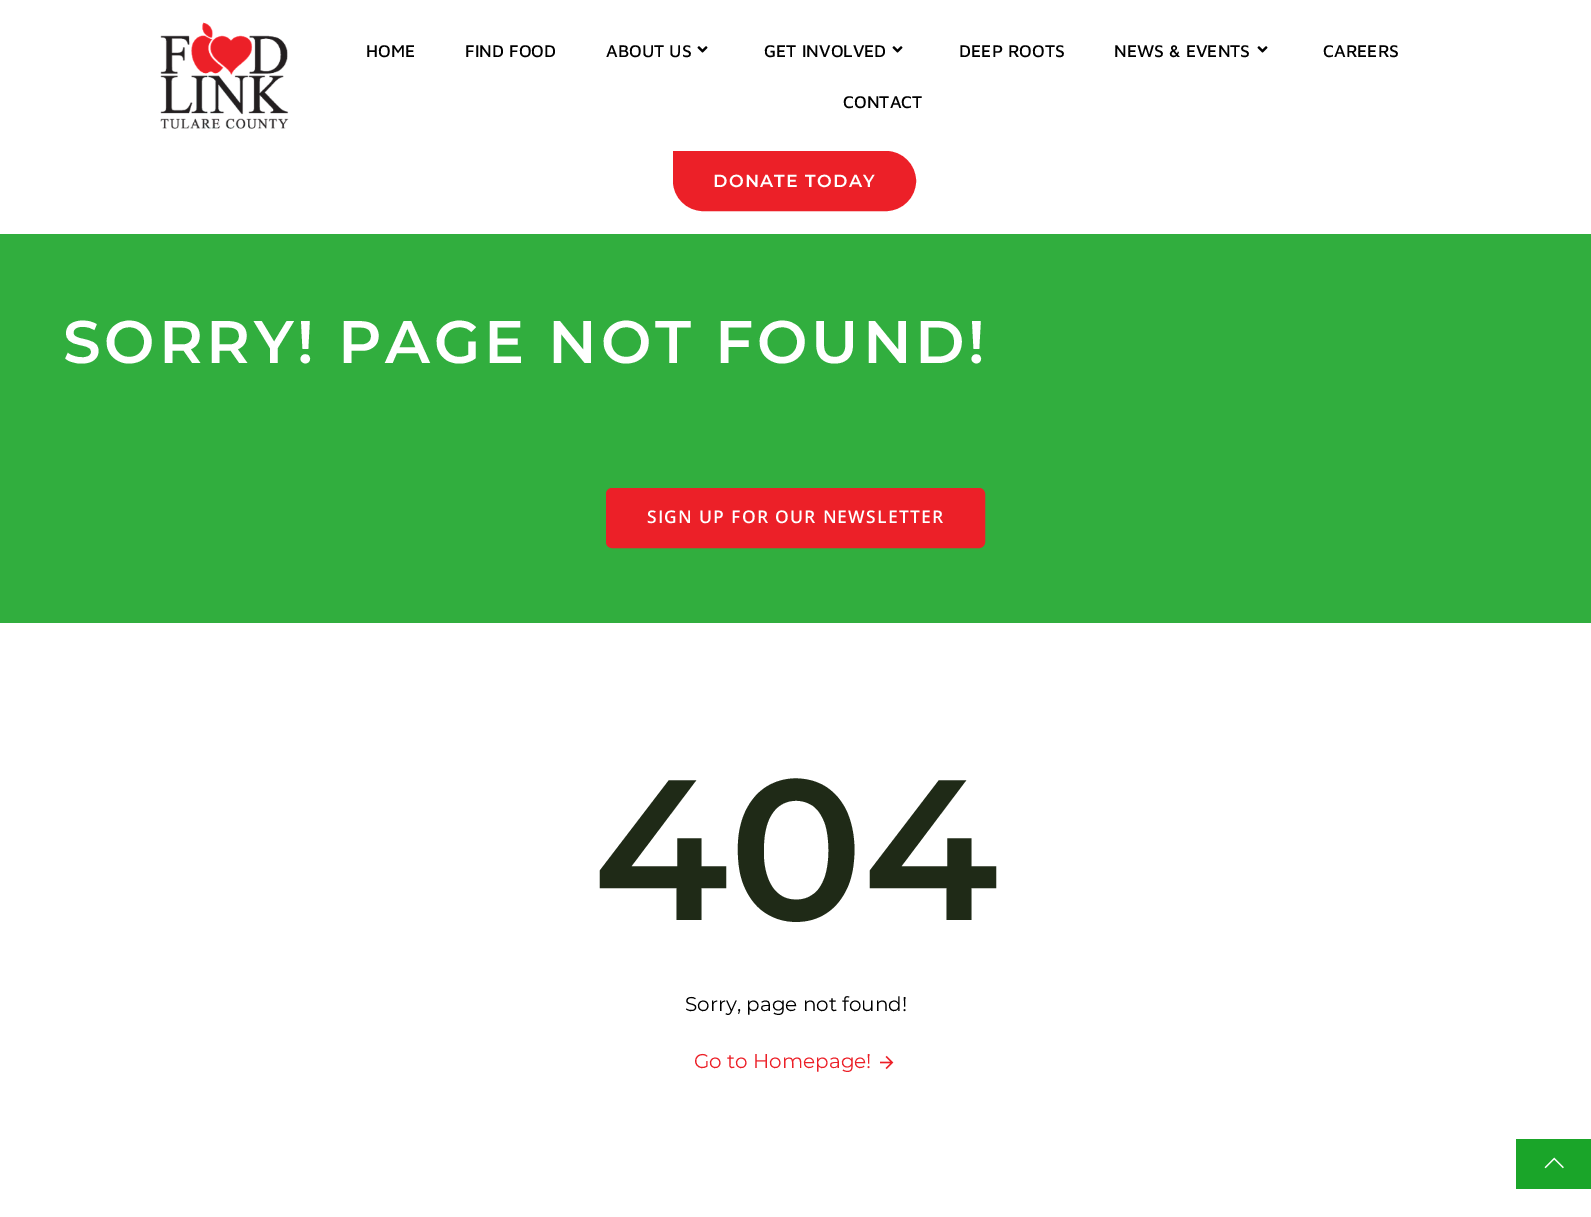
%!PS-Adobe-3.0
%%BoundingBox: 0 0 1591 1217
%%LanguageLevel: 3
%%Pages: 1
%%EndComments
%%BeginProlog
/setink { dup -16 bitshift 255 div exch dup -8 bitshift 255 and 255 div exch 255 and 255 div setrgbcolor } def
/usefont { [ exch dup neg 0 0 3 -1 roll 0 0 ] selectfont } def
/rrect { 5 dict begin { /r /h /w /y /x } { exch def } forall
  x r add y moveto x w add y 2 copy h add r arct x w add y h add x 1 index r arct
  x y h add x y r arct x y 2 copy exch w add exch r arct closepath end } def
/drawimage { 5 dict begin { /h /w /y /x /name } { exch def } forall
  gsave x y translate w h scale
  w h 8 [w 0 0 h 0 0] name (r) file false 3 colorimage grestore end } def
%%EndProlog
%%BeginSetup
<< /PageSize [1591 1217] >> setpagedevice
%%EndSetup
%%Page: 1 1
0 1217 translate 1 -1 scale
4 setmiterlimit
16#FFFFFF setink
0 0 1591 1217 rectfill
(img1.raw) 160 22 129 107 drawimage
/MavenPro-Medium 17.5 usefont
16#000000 setink
[
    [(HOME) 366 57]
    [(FIND FOOD) 465 57]
    [(ABOUT US) 606 57]
] { aload pop moveto show } forall
(img2.raw) 697 46 11 7 drawimage
764 57 moveto (GET INVOLVED) show
(img2.raw) 892 46 11 7 drawimage
959 57 moveto (DEEP ROOTS) show
1114 57 moveto (NEWS & EVENTS) show
(img2.raw) 1257 46 11 7 drawimage
1323 57 moveto (CAREERS) show
843 108 moveto (CONTACT) show
16#EC2028 setink
674.5 152.5 moveto 886 152.5 lineto 901.5 152.5 914.5 165.5 914.5 181 curveto 914.5 196.5 901.5 209.5 886 209.5 curveto 703 209.5 lineto 687.5 209.5 674.5 196.5 674.5 181 curveto closepath gsave fill grestore
3 setlinewidth
stroke
/Montserrat-SemiBold 17.5 usefont
16#FFFFFF setink
713 187 moveto 1.25 0 (DONATE TODAY) ashow
16#31AE3E setink
0 234 1591 389 rectfill
/Montserrat-SemiBold 60 usefont
16#FFFFFF setink
63 363 moveto 3.75 0 (SORRY! PAGE NOT FOUND!) ashow
16#EC2028 setink
607.5 489.5 376 57 4.5 rrect gsave fill grestore
stroke
/OpenSans-SemiBold 17.5 usefont
16#FFFFFF setink
647 523 moveto 1.25 0 (SIGN UP FOR OUR NEWSLETTER) ashow
/Montserrat-SemiBold 200 usefont
16#1F2A17 setink
593 920 moveto (404) show
/Montserrat-Regular 20 usefont
16#000000 setink
685 1011 moveto (Sorry, page not found!) show
16#EC2028 setink
694 1068 moveto (Go to Homepage!) show
(img3.raw) 880 1055 14 15 drawimage
16#1AA529 setink
1516 1139 75 50 rectfill
(img4.raw) 1544 1157 20 12 drawimage
showpage
%%EOF
